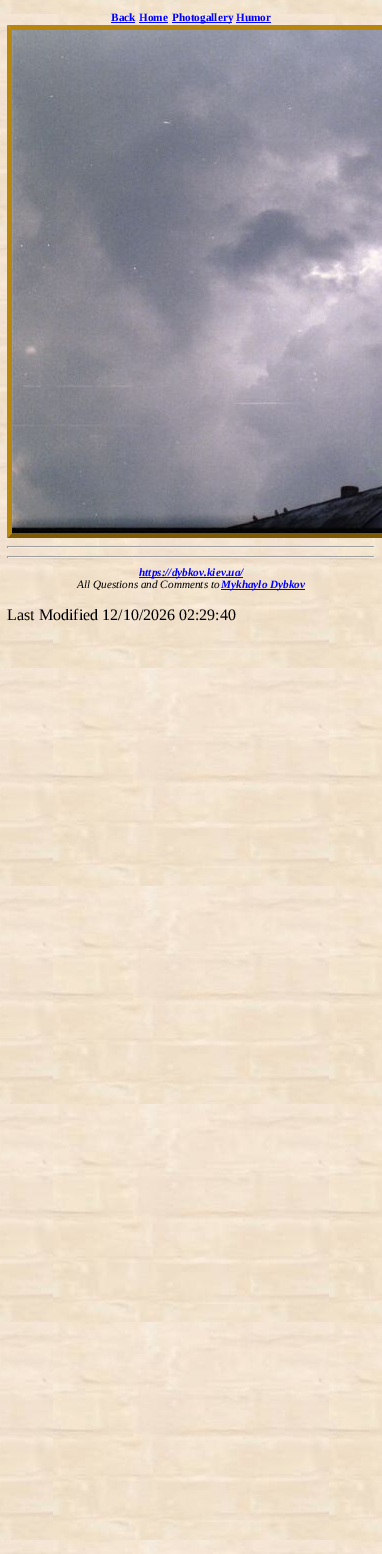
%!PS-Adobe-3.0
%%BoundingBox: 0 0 382 1554
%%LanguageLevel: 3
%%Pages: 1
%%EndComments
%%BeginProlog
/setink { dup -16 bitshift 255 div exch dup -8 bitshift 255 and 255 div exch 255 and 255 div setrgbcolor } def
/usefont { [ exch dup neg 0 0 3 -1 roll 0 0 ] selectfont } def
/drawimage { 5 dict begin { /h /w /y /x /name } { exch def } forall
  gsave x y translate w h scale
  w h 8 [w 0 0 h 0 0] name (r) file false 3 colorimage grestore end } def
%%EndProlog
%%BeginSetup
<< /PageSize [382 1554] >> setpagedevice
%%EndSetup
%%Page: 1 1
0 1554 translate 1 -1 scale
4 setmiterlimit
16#FFFFFF setink
0 0 382 1554 rectfill
(img1.raw) 0 0 382 1554 drawimage
/LiberationSerif-Bold 11.25 usefont
16#0000FF setink
111 21 moveto (Back) show
111 22 24 1 rectfill
139 21 moveto (Home) show
139 22 29 1 rectfill
172 22 60 1 rectfill
172 21 moveto (Photogallery) show
236 21 moveto (Humor) show
236 22 35 1 rectfill
16#B8860B setink
7 25 moveto 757 25 lineto 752 30 lineto 12 30 lineto closepath fill
16#7B5907 setink
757 538 moveto 7 538 lineto 12 533 lineto 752 533 lineto closepath fill
16#B8860B setink
7 538 moveto 7 25 lineto 12 30 lineto 12 533 lineto closepath fill
(img2.raw) 12 30 370 503 drawimage
[
    [7 546 368 1 16#9F9F9F]
    [374 546 1 2 16#EEEEEE]
    [7 547 368 1 16#EEEEEE]
    [7 546 1 2 16#9F9F9F]
    [7 556 368 1 16#9F9F9F]
    [374 556 1 2 16#EEEEEE]
    [7 557 368 1 16#EEEEEE]
    [7 556 1 2 16#9F9F9F]
    [139 577 104 1 16#0000FF]
] { aload pop setink rectfill } forall
/LiberationSerif-BoldItalic 11.25 usefont
139 576 moveto (https://dybkov.kiev.ua/) show
/LiberationSerif-Italic 11.25 usefont
16#000000 setink
77 588 moveto (All Questions and Comments to) show
16#0000FF setink
221 589 84 1 rectfill
/LiberationSerif-BoldItalic 11.25 usefont
221 588 moveto (Mykhaylo Dybkov) show
/LiberationSerif-Regular 16 usefont
16#000000 setink
7 620 moveto (Last Modified 12/10/2026 02:29:40) show
showpage
%%EOF
